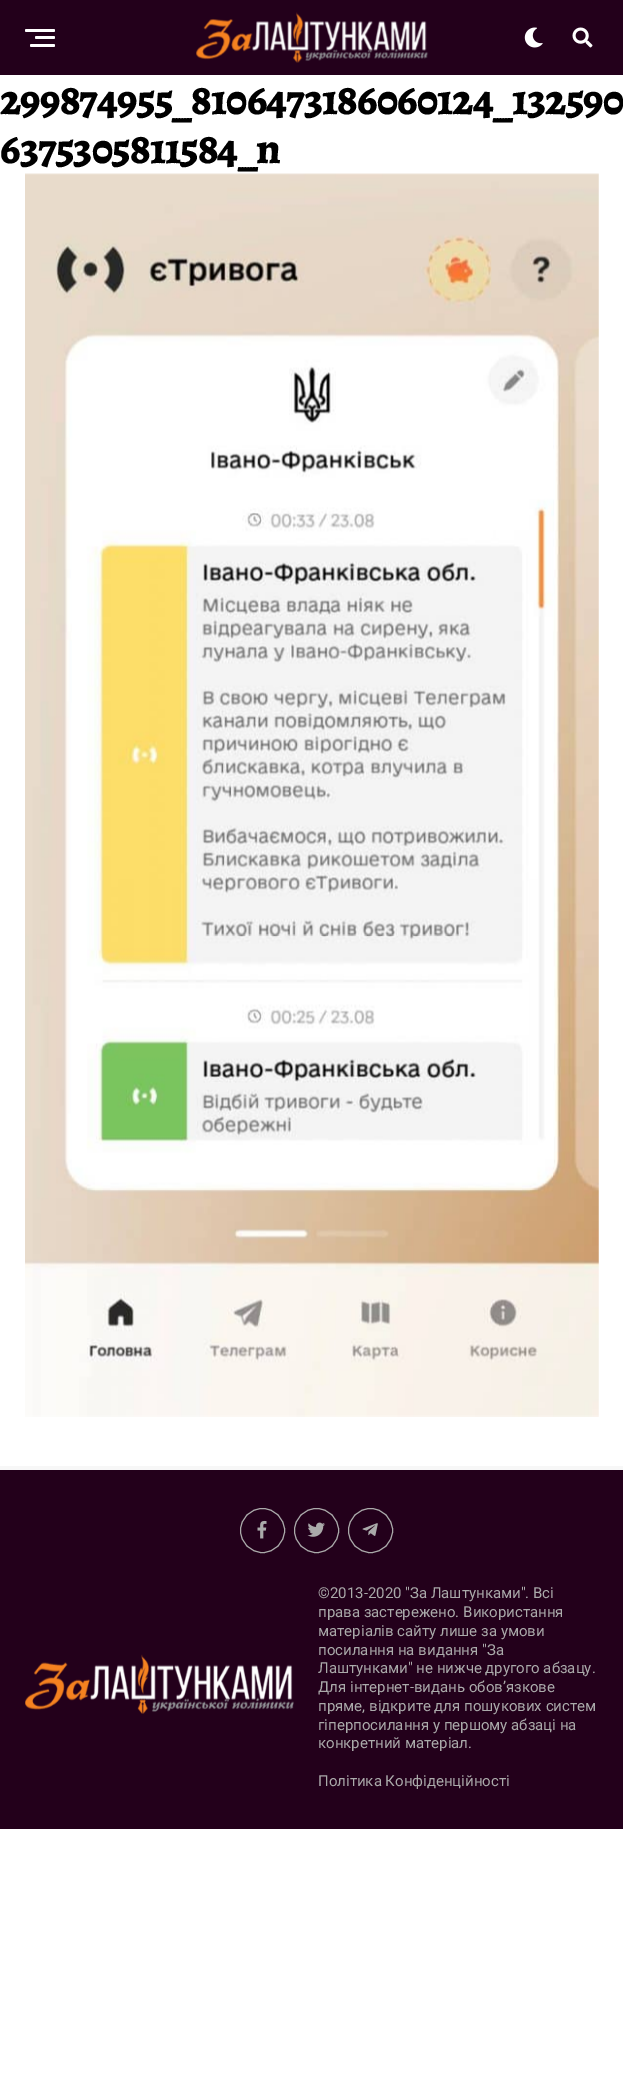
%!PS-Adobe-3.0
%%BoundingBox: 0 0 623 2100
%%LanguageLevel: 3
%%Pages: 1
%%EndComments
%%BeginProlog
/setink { dup -16 bitshift 255 div exch dup -8 bitshift 255 and 255 div exch 255 and 255 div setrgbcolor } def
/usefont { [ exch dup neg 0 0 3 -1 roll 0 0 ] selectfont } def
/disc { newpath 0 360 arc closepath } def
/rrect { 5 dict begin { /r /h /w /y /x } { exch def } forall
  x r add y moveto x w add y 2 copy h add r arct x w add y h add x 1 index r arct
  x y h add x y r arct x y 2 copy exch w add exch r arct closepath end } def
/drawimage { 5 dict begin { /h /w /y /x /name } { exch def } forall
  gsave x y translate w h scale
  w h 8 [w 0 0 h 0 0] name (r) file false 3 colorimage grestore end } def
%%EndProlog
%%BeginSetup
<< /PageSize [623 2100] >> setpagedevice
%%EndSetup
%%Page: 1 1
0 2100 translate 1 -1 scale
4 setmiterlimit
16#FFFFFF setink
0 0 623 2100 rectfill
16#23001B setink
0 0 623 75 rectfill
16#FFFFFF setink
25 29 30 3 1.5 rrect fill
35 36 20 3 1.5 rrect fill
30 44 25 3 1.5 rrect fill
(img1.raw) 196 12 233 51 drawimage
(img2.raw) 524 27 19 21 drawimage
(img3.raw) 572 27 21 21 drawimage
/Alegreya-ExtraBold 43.7 usefont
16#000000 setink
0 114 moveto -0.9 0 (299874955_8106473186060124_132590) ashow
0 163 moveto -0.9 0 (6375305811584_n) ashow
(img4.raw) 25 173 574 1244 drawimage
16#23001B setink
0 1470 623 359 rectfill
16#F7F7F7 setink
0 1466 623 4 rectfill
16#AAAAAA setink
262.5 1530.5 22 disc stroke
(img5.raw) 257 1520 10 19 drawimage
316.5 1530.5 22 disc stroke
(img6.raw) 307 1522 18 15 drawimage
370.5 1530.5 22 disc stroke
(img7.raw) 362 1523 16 13 drawimage
(img8.raw) 25 1654 269 60 drawimage
/Roboto-Regular 15 usefont
[
    [(©2013-2020 "За Лаштунками". Всі) 318 1598]
    [(права застережено. Використання) 318 1617]
    [(матеріалів сайту лише за умови) 318 1636]
    [(посилання на видання "За) 318 1655]
    [(Лаштунками" не нижче другого абзацу.) 318 1673]
    [(Для інтернет-видань обов’язкове) 318 1692]
    [(пряме, відкрите для пошукових систем) 318 1711]
    [(гіперпосилання у першому абзаці на) 318 1730]
    [(конкретний матеріал.) 318 1748]
    [(Політика Конфіденційності) 318 1786]
] { aload pop moveto show } forall
showpage
%%EOF
